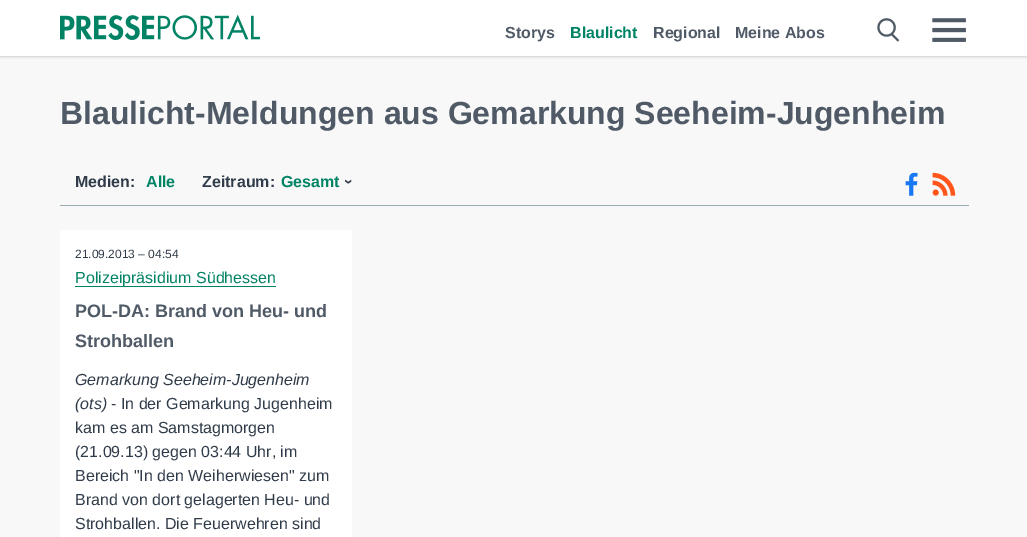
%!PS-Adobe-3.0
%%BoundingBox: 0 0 1027 537
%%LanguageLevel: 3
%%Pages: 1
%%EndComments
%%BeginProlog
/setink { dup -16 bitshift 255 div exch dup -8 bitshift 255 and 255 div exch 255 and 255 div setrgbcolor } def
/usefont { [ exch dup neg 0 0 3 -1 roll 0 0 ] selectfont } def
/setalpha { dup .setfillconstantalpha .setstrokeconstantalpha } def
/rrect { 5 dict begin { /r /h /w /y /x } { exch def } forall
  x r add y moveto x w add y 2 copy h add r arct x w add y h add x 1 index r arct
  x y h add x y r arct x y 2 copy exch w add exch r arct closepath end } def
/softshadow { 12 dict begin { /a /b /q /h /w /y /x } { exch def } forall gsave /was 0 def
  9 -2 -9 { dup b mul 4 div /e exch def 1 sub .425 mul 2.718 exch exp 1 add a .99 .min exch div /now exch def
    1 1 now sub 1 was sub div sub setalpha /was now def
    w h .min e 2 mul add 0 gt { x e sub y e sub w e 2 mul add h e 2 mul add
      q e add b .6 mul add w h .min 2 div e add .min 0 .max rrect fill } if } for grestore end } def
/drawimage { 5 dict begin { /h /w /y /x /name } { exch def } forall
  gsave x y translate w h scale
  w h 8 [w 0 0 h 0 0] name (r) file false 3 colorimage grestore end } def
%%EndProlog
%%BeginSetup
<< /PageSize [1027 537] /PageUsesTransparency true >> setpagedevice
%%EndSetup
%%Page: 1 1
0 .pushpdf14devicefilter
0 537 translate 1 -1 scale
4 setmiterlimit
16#F8F8F8 setink
0 0 1027 537 rectfill
16#4F5A66 setink
0 1 1027 56 0 1 0.16 softshadow
0 1 1027 56 0 1 0.1 softshadow
16#FFFFFF setink
0 0 1027 56 rectfill
(img1.raw) 60 14 200 26 drawimage
/LiberationSans-Bold 16 usefont
16#4F5A66 setink
505 38 moveto (Storys) show
16#008264 setink
570 38 moveto (Blaulicht) show
16#4F5A66 setink
653 38 moveto (Regional) show
735 38 moveto (Meine Abos) show
(img2.raw) 877 18 23 24 drawimage
(img3.raw) 932 18 34 24 drawimage
/LiberationSans-Bold 32 usefont
60 124 moveto (Blaulicht-Meldungen aus Gemarkung Seeheim-Jugenheim) show
16#99A9B2 setink
60 205 909 1 rectfill
/LiberationSans-Bold 16 usefont
16#303C49 setink
75 187 moveto (Medien:) show
16#008264 setink
146 187 moveto (Alle) show
16#303C49 setink
202 187 moveto (Zeitraum:) show
16#008264 setink
281 187 moveto (Gesamt) show
16#303C49 setink
gsave 344 179 translate 90 rotate 0 0 moveto (›) show grestore
(img4.raw) 905 172 13 24 drawimage
(img5.raw) 932 172 24 24 drawimage
16#FFFFFF setink
60 230 292 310 3 rrect fill
/LiberationSans-Regular 12 usefont
16#303C49 setink
75 258 moveto (21.09.2013 – 04:54) show
16#008264 setink
75 286 201 1 rectfill
/LiberationSans-Regular 16 usefont
75 283 moveto (Polizeipräsidium Südhessen) show
/LiberationSans-Bold 18 usefont
16#4F5A66 setink
75 317 moveto (POL-DA: Brand von Heu- und) show
75 347 moveto (Strohballen) show
/LiberationSans-Italic 16 usefont
16#303C49 setink
75 385 moveto (Gemarkung Seeheim-Jugenheim) show
75 409 moveto (\(ots\)) show
/LiberationSans-Regular 16 usefont
[
    [(- In der Gemarkung Jugenheim) 111 409]
    [(kam es am Samstagmorgen) 75 433]
    [(\(21.09.13\) gegen 03:44 Uhr, im) 75 457]
    [(Bereich "In den Weiherwiesen" zum) 75 481]
    [(Brand von dort gelagerten Heu- und) 75 505]
    [(Strohballen. Die Feuerwehren sind) 75 529]
] { aload pop moveto show } forall
.poppdf14devicefilter showpage
%%EOF
